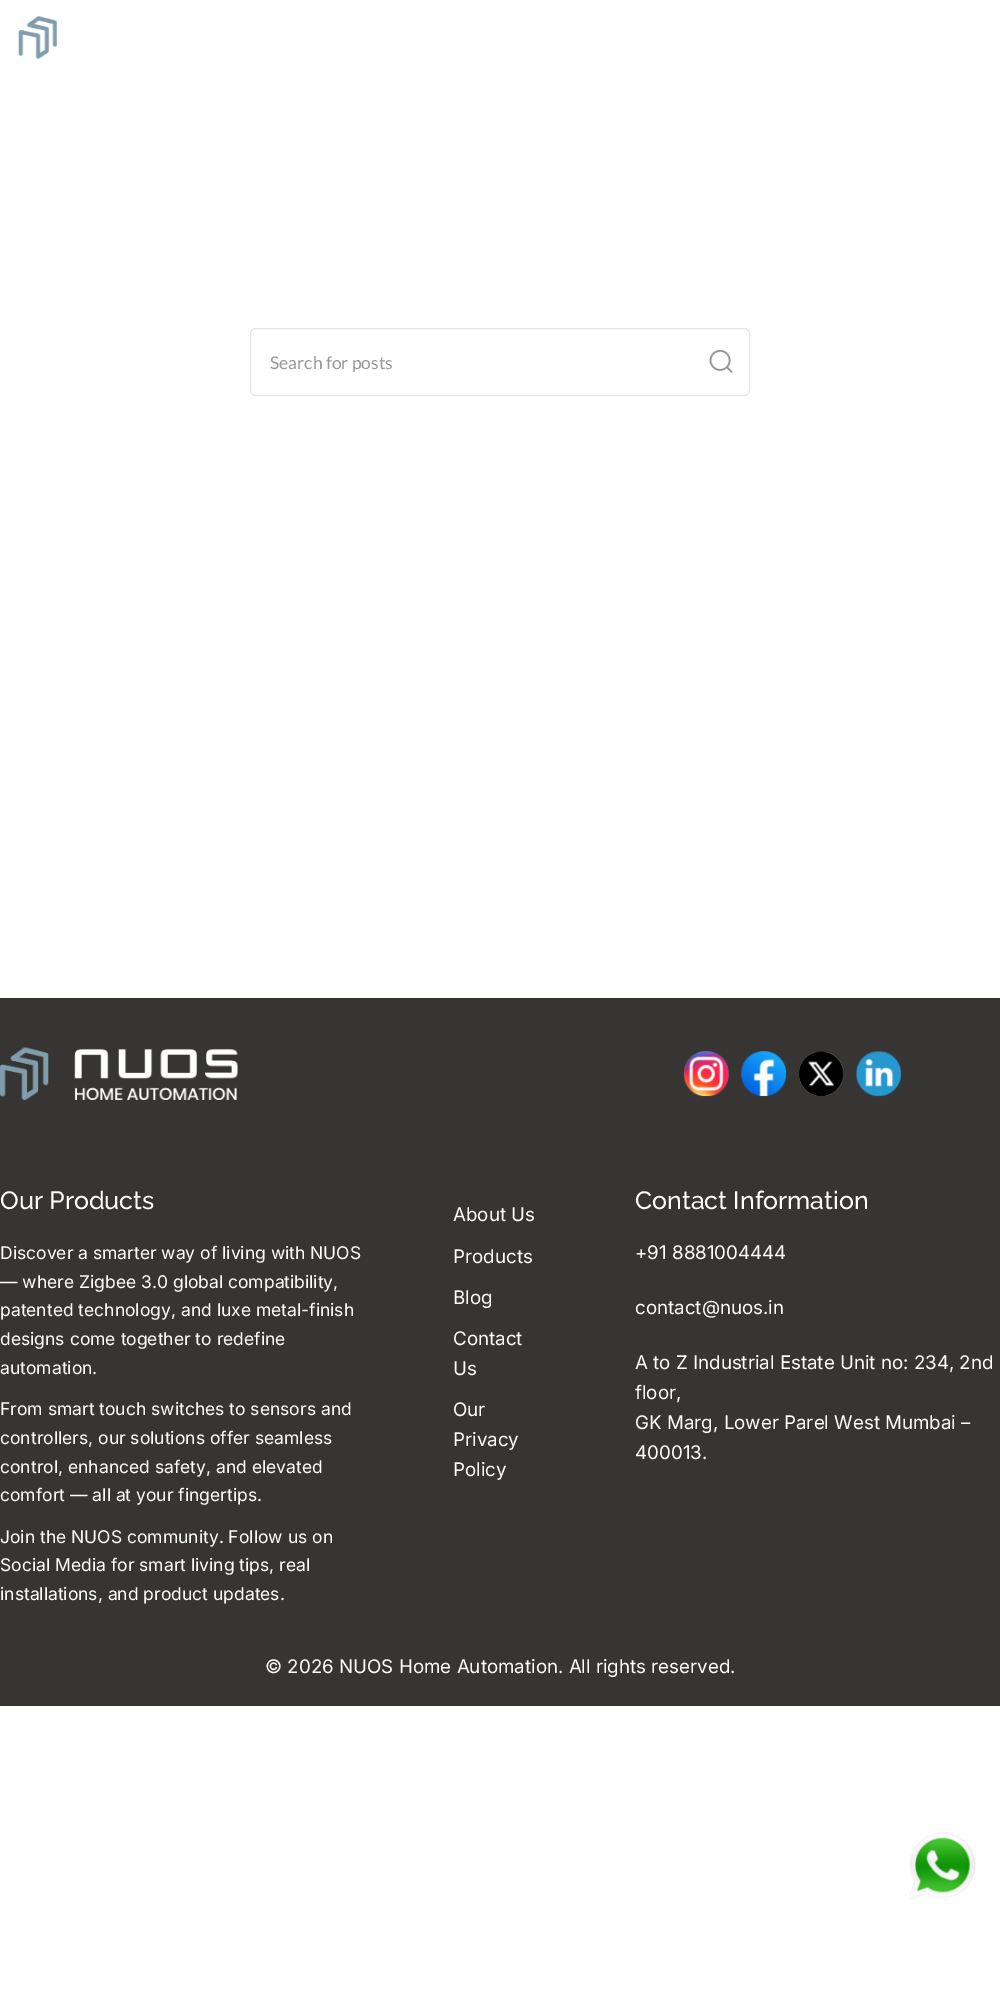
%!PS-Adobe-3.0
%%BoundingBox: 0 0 1000 1993
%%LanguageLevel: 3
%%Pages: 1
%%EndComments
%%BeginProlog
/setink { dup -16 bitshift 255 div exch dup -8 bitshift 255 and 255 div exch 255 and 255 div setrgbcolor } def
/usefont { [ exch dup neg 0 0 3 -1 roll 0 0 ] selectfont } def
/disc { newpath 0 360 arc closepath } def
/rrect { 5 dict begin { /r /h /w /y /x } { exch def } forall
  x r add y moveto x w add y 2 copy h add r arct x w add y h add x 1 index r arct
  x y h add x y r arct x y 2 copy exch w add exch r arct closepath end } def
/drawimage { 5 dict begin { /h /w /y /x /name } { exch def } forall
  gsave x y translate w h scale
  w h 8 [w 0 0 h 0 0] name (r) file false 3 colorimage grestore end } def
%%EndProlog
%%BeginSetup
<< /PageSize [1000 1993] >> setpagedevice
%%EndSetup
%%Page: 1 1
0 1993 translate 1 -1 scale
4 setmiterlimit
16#FFFFFF setink
0 0 1000 1993 rectfill
(img1.raw) 18 16 40 43 drawimage
16#E6E6E6 setink
250.5 328.5 499 67 5.5 rrect stroke
/Lato-Regular 17.5 usefont
16#989898 setink
270 369 moveto (Search for posts) show
(img2.raw) 709 349 24 24 drawimage
16#363533 setink
0 998 1000 708 rectfill
(img3.raw) 0 1047 238 53 drawimage
16#3E413F setink
706.5 1073.5 22.5 disc fill
(img4.raw) 683 1051 46 46 drawimage
763.5 1073.5 22.5 disc fill
(img5.raw) 741 1051 46 46 drawimage
821.5 1073.5 22.5 disc fill
(img6.raw) 799 1051 45 45 drawimage
878.5 1073.5 22.5 disc fill
(img7.raw) 856 1051 46 46 drawimage
/Raleway-Medium 25 usefont
16#FFFFFF setink
0 1209 moveto (Our Products) show
/Inter-Regular 17.5 usefont
[
    [(Discover a smarter way of living with NUOS) 0 1259]
    [(— where Zigbee 3.0 global compatibility,) 0 1288]
    [(patented technology, and luxe metal-finish) 0 1316]
    [(designs come together to redefine) 0 1345]
    [(automation.) 0 1374]
    [(From smart touch switches to sensors and) 0 1415]
    [(controllers, our solutions offer seamless) 0 1444]
    [(control, enhanced safety, and elevated) 0 1473]
    [(comfort — all at your fingertips.) 0 1501]
    [(Join the NUOS community. Follow us on) 0 1543]
    [(Social Media for smart living tips, real) 0 1571]
    [(installations, and product updates.) 0 1600]
] { aload pop moveto show } forall
/Inter-Regular 18.75 usefont
[
    [(About Us) 453 1221]
    [(Products) 453 1263]
    [(Blog) 453 1304]
    [(Contact) 453 1345]
    [(Us) 453 1375]
    [(Our) 453 1416]
    [(Privacy) 453 1446]
    [(Policy) 453 1476]
] { aload pop moveto show } forall
/Raleway-Medium 25 usefont
635 1209 moveto (Contact Information) show
/Inter-Regular 18.75 usefont
[
    [(+91 8881004444) 635 1259]
    [(contact@nuos.in) 635 1314]
    [(A to Z Industrial Estate Unit no: 234, 2nd) 635 1369]
    [(floor,) 635 1399]
    [(GK Marg, Lower Parel West Mumbai –) 635 1429]
    [(400013.) 635 1459]
    [(© 2026 NUOS Home Automation. All rights reserved.) 265 1673]
] { aload pop moveto show } forall
(img8.raw) 909 1832 67 68 drawimage
showpage
%%EOF
